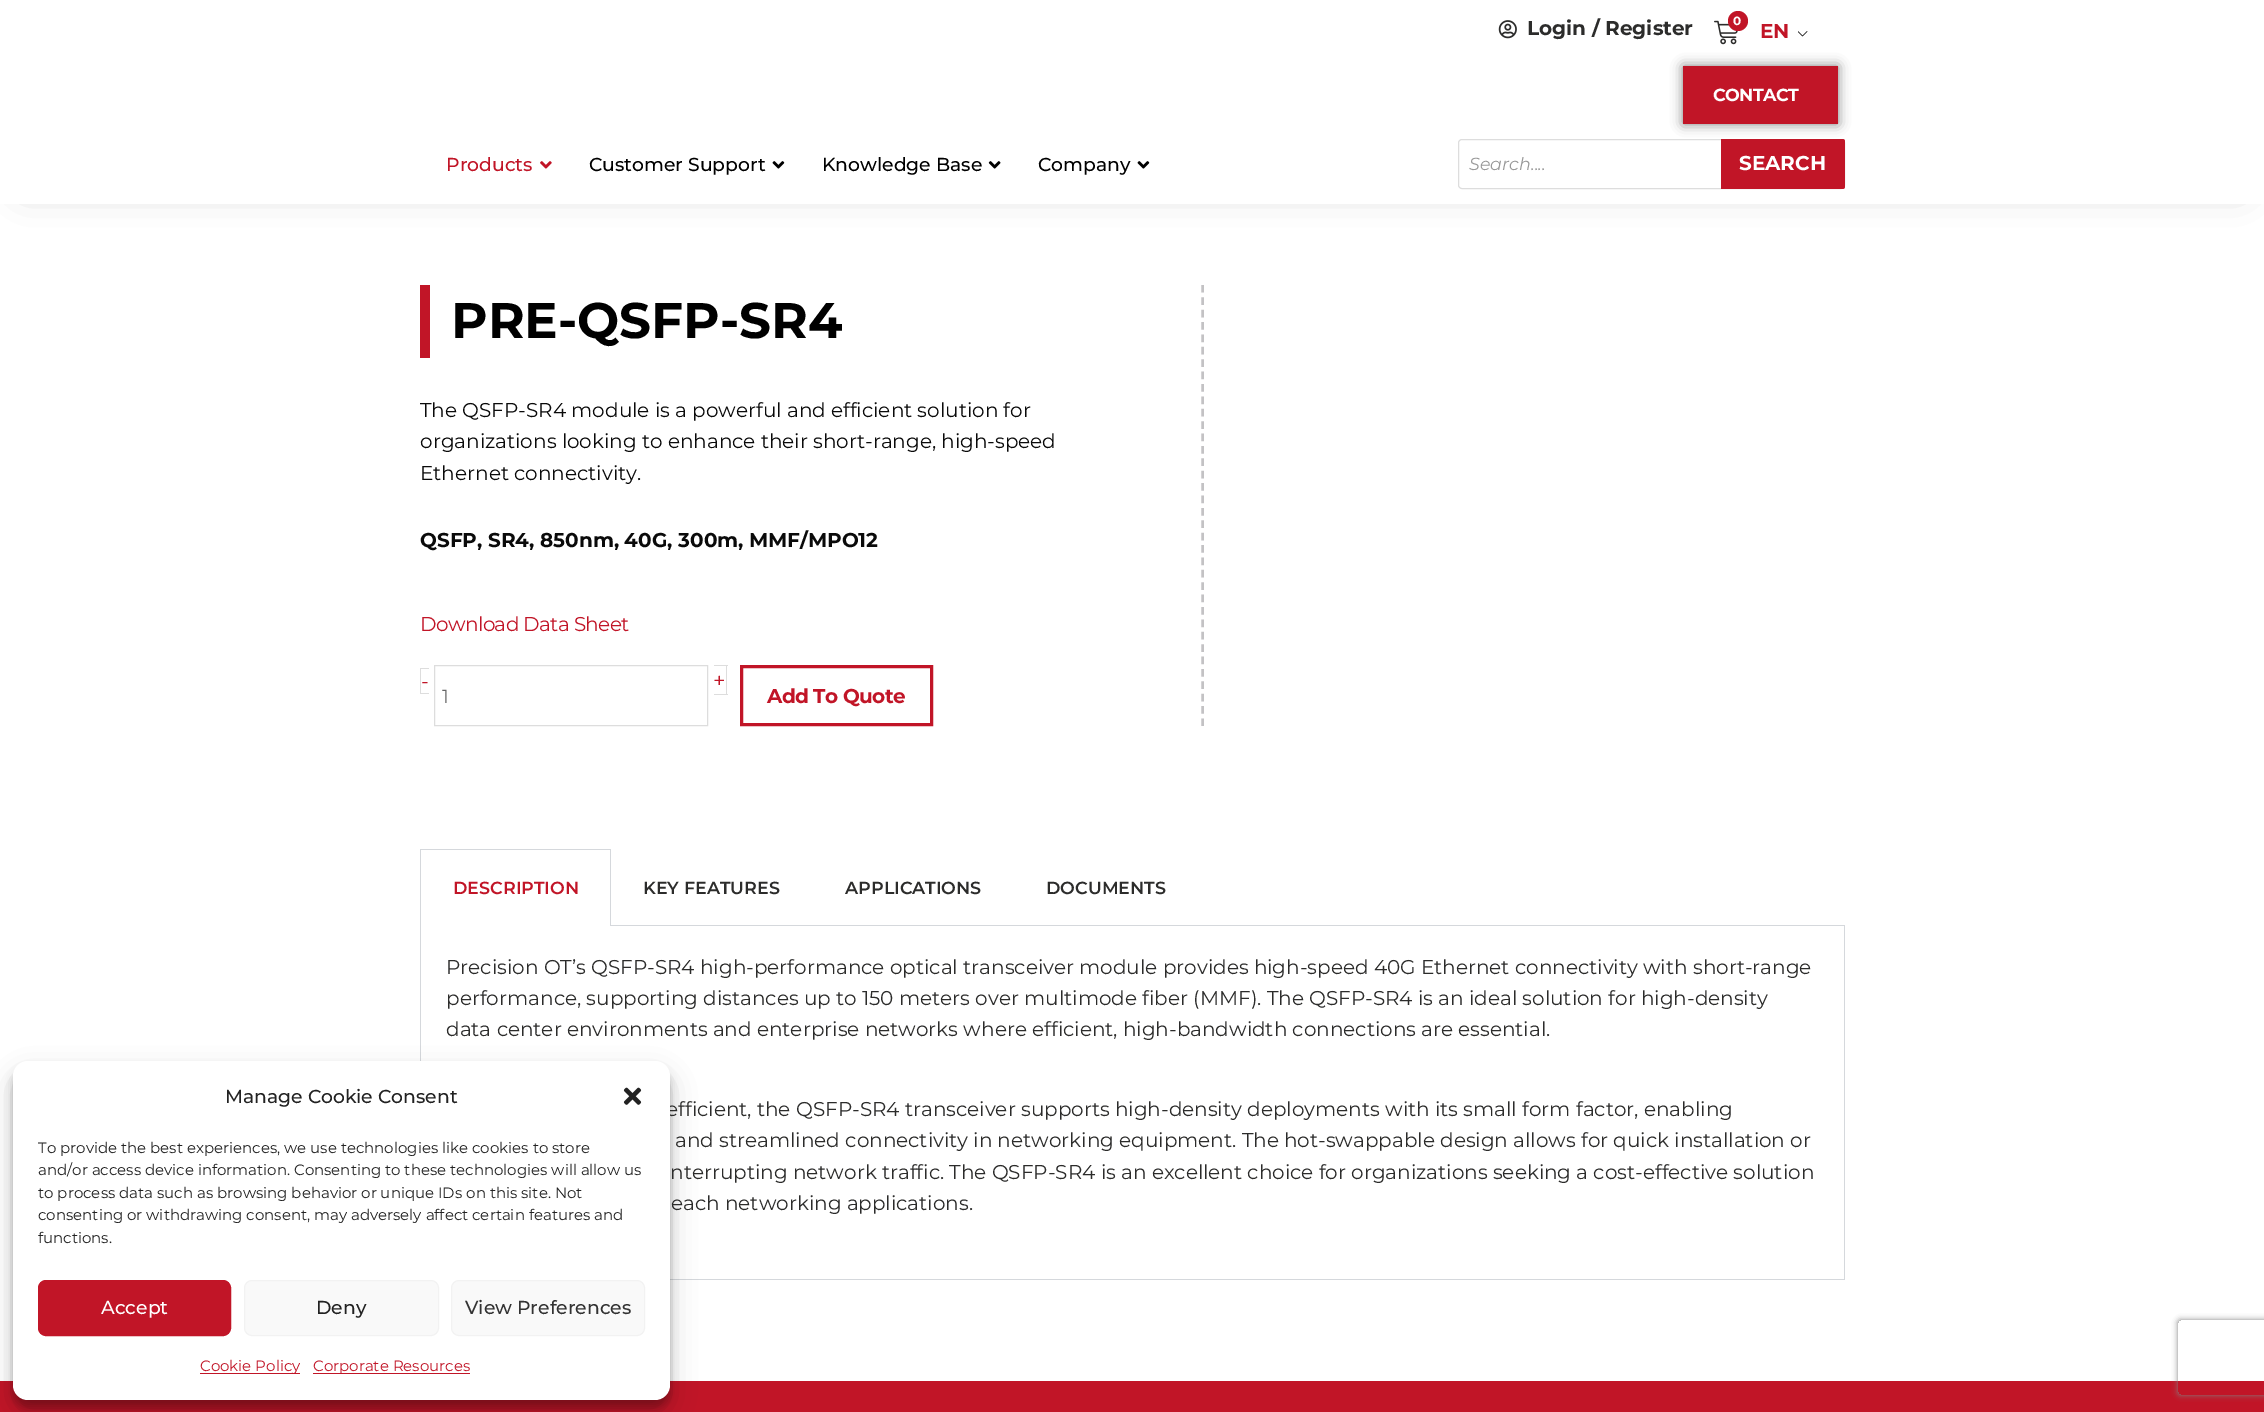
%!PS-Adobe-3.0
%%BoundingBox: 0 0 2264 1412
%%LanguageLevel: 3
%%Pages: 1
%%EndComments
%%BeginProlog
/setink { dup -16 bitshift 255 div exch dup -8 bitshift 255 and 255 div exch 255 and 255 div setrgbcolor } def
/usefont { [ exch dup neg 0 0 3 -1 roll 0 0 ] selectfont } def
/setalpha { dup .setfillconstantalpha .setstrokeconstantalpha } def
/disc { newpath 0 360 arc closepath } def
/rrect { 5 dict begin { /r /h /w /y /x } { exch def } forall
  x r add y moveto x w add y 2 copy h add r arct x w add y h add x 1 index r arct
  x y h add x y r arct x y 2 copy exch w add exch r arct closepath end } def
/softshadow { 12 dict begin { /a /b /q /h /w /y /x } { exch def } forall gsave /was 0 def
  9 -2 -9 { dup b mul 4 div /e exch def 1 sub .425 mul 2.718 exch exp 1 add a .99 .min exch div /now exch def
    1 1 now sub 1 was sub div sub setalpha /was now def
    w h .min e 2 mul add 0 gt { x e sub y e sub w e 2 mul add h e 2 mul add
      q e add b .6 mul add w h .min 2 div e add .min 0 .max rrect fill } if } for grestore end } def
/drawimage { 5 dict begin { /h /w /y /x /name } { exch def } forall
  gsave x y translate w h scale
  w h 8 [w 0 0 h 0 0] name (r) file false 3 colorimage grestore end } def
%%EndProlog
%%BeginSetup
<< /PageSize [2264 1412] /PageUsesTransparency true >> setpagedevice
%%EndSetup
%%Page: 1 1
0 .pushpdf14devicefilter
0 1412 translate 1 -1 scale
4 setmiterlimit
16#FFFFFF setink
0 0 2264 1412 rectfill
[
    [1844 926 1 354 16#D5D8DC]
    [670 1279 1175 1 16#D5D8DC]
    [420 926 1 135 16#D5D8DC]
    [0 1381 2264 31 16#C11527]
] { aload pop setink rectfill } forall
16#000000 setink
13 1069 657 339 15 4 0.23 softshadow
13 1074 657 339 15 12.5 0.19 softshadow
/Montserrat-Regular 20 usefont
16#2C2C2B setink
666 1116 moveto (efficient, the QSFP-SR4 transceiver supports high-density deployments with its small form factor, enabling) show
16#FFFFFF setink
13 1061 657 339 15 rrect fill
/Montserrat-Medium 18.75 usefont
16#222222 setink
225 1103 moveto (Manage Cookie Consent) show
(img1.raw) 623 1087 19 18 drawimage
/Montserrat-Regular 15 usefont
[
    [(To provide the best experiences, we use technologies like cookies to store) 38 1153]
    [(and/or access device information. Consenting to these technologies will allow us) 38 1175]
    [(to process data such as browsing behavior or unique IDs on this site. Not) 38 1198]
    [(consenting or withdrawing consent, may adversely affect certain features and) 38 1220]
    [(functions.) 38 1243]
] { aload pop moveto show } forall
16#C11527 setink
38.5 1280.5 192 55 7.5 rrect gsave fill grestore
stroke
/Montserrat-Medium 18.75 usefont
16#FFFFFF setink
101 1314 moveto (Accept) show
16#F9F9F9 setink
244.5 1280.5 194 55 7.5 rrect gsave fill grestore
16#F2F2F2 setink
stroke
16#222222 setink
316 1314 moveto (Deny) show
16#F9F9F9 setink
451.5 1280.5 193 55 7.5 rrect gsave fill grestore
16#F2F2F2 setink
stroke
16#333333 setink
465 1314 moveto (View Preferences) show
16#C11527 setink
200 1373 100 1 rectfill
/Montserrat-Regular 15 usefont
200 1371 moveto (Cookie Policy) show
313 1373 157 1 rectfill
313 1371 moveto (Corporate Resources) show
16#000000 setink
25 31 2215 154 0 19 0.26 softshadow
16#FFFFFF setink
0 0 2264 204 rectfill
(img2.raw) 1498 20 19 19 drawimage
/Montserrat-Bold 20 usefont
16#2C2C2B setink
1527 35 moveto (Login / Register) show
(img3.raw) 1714 20 24 25 drawimage
16#C11527 setink
1738 21 10 disc fill
/Montserrat-Bold 12 usefont
16#FFFFFF setink
1733 25 moveto (0) show
(img4.raw) 1798 31 10 6 drawimage
/Montserrat-Bold 20 usefont
16#C11527 setink
1760 38 moveto (EN) show
16#DDDDDD setink
1458.5 139.5 386 49 3.5 rrect stroke
16#C11527 setink
1721 139 moveto 1842.5 139 lineto 1844 139 1845 140 1845 141.5 curveto 1845 186.5 lineto 1845 188 1844 189 1842.5 189 curveto 1721 189 lineto closepath fill
16#000000 setink
1683 66 155 58 0 6 0.5 softshadow
16#C11527 setink
1683 66 155 58 rectfill
/Montserrat-Bold 17.5 usefont
16#FFFFFF setink
1713 101 moveto -0.5 0 (CONTACT) ashow
/Montserrat-Medium 18.75 usefont
16#C11527 setink
446 171 moveto (Products) show
(img5.raw) 540 161 12 8 drawimage
16#000000 setink
589 171 moveto (Customer Support) show
(img6.raw) 772 161 13 8 drawimage
822 171 moveto (Knowledge Base) show
(img7.raw) 988 161 13 8 drawimage
1038 171 moveto (Company) show
(img6.raw) 1137 161 13 8 drawimage
/Montserrat-Italic 17.5 usefont
16#999999 setink
1469 170 moveto (Search....) show
/Montserrat-Bold 20 usefont
16#FFFFFF setink
1739 170 moveto (SEARCH) show
16#C3C2C4 setink
2.5 setlinewidth
[7.5 4.89] 0 setdash
1202.5 285 moveto 1202.5 726 lineto stroke
16#C11527 setink
420 285 10 73 rectfill
/Montserrat-Bold 50 usefont
16#000000 setink
451 338 moveto (PRE-QSFP-SR4) show
/Montserrat-Regular 20 usefont
16#0A0A0A setink
[
    [(The QSFP-SR4 module is a powerful and efficient solution for) 420 417]
    [(organizations looking to enhance their short-range, high-speed) 420 448]
    [(Ethernet connectivity.) 420 480]
] { aload pop moveto show } forall
/Montserrat-Bold 20 usefont
420 547 moveto (QSFP, SR4, 850nm, 40G, 300m, MMF/MPO12) show
/Montserrat-Regular 20 usefont
16#C11527 setink
420 631 moveto -0.6 0 (Download Data Sheet) ashow
421 688 moveto (-) show
[
    [420 668 9 1 16#DDDDDD]
    [420 693 9 1 16#DDDDDD]
    [420 668 1 26 16#DDDDDD]
] { aload pop setink rectfill } forall
/Montserrat-Regular 22 usefont
16#C11527 setink
713 688 moveto (+) show
[
    [714 665 14 1 16#DDDDDD]
    [726 665 1 30 16#DDDDDD]
    [714 694 14 1 16#DDDDDD]
] { aload pop setink rectfill } forall
1 setlinewidth
[] 0 setdash
434.5 665.5 273 60 rectstroke
/Montserrat-Regular 18.75 usefont
16#666666 setink
442 703 moveto (1) show
16#C11527 setink
3 setlinewidth
741.5 666.5 190 58 rectstroke
/Montserrat-Bold 20 usefont
767 703 moveto -0.6 0 (Add To Quote) ashow
[
    [420 849 191 1 16#D5D8DC]
    [610 849 1 77 16#D5D8DC]
    [420 849 1 77 16#D5D8DC]
] { aload pop setink rectfill } forall
/Montserrat-SemiBold 17.5 usefont
16#C11527 setink
453 894 moveto (DESCRIPTION) show
16#D5D8DC setink
610 925 1235 1 rectfill
16#2C2C2B setink
[
    [(KEY FEATURES) 643 894]
    [(APPLICATIONS) 845 894]
    [(DOCUMENTS) 1046 894]
] { aload pop moveto show } forall
/Montserrat-Regular 20 usefont
[
    [(Precision OT’s QSFP-SR4 high-performance optical transceiver module provides high-speed 40G Ethernet connectivity with short-range) 446 974]
    [(performance, supporting distances up to 150 meters over multimode fiber \(MMF\). The QSFP-SR4 is an ideal solution for high-density) 446 1005]
    [(data center environments and enterprise networks where efficient, high-bandwidth connections are essential.) 446 1036]
    [(and streamlined connectivity in networking equipment. The hot-swappable design allows for quick installation or) 675 1147]
    [(nterrupting network traffic. The QSFP-SR4 is an excellent choice for organizations seeking a cost-effective solution) 670 1179]
    [(each networking applications.) 671 1210]
] { aload pop moveto show } forall
gsave
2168 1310 moveto 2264 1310 lineto 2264 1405 lineto 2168 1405 lineto closepath 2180.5 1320 moveto 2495.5 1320 lineto 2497 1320 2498 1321 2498 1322.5 curveto 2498 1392.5 lineto 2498 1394 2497 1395 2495.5 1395 curveto 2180.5 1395 lineto 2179 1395 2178 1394 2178 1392.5 curveto 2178 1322.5 lineto 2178 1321 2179 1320 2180.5 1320 curveto closepath eoclip newpath
16#808080 setink
2178 1320 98 75 2.5 3 1 softshadow
grestore
.poppdf14devicefilter showpage
%%EOF
